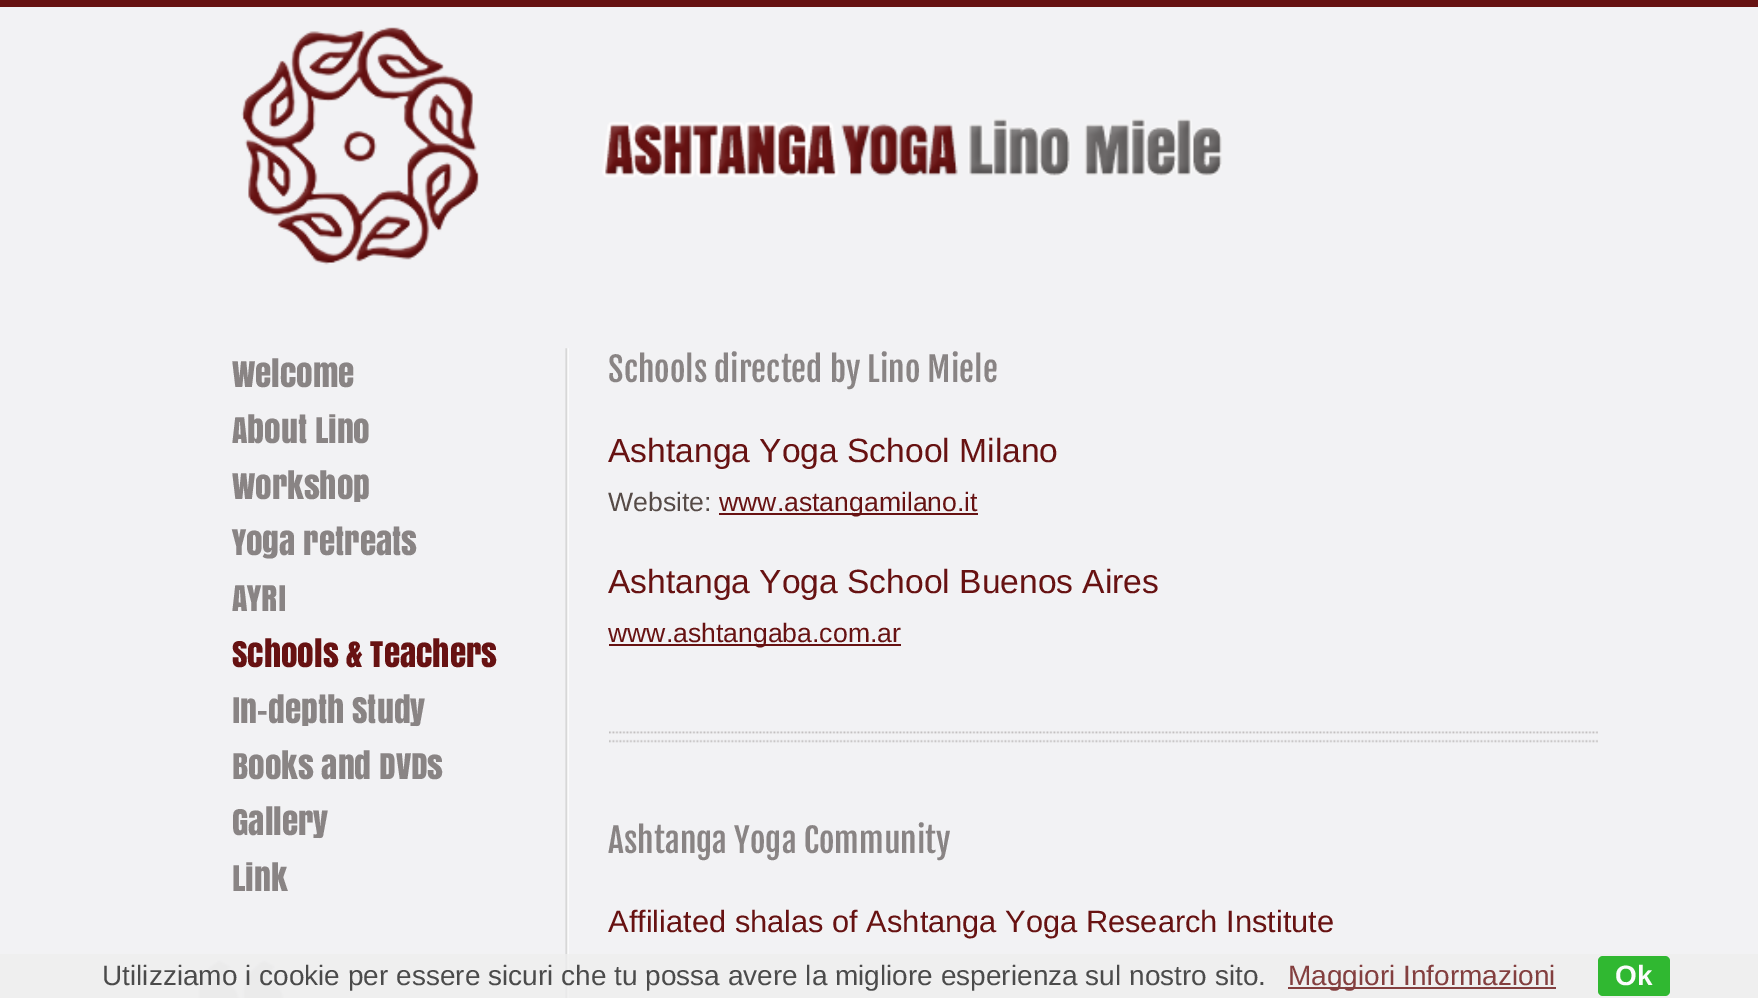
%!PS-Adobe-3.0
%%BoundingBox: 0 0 1758 998
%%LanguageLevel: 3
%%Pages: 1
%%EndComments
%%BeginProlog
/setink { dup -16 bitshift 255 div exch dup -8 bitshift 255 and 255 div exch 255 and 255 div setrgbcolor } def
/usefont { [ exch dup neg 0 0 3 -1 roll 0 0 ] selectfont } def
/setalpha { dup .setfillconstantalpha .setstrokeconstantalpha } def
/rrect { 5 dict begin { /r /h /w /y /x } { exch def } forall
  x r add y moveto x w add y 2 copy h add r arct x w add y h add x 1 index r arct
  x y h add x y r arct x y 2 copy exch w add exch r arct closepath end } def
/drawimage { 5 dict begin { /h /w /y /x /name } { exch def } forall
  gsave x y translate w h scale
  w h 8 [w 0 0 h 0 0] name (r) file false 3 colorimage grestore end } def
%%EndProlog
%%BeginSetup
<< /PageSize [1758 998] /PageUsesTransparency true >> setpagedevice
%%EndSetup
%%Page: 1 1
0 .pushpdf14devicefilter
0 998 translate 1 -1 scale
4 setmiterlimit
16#F2F2F4 setink
0 0 1758 998 rectfill
16#671212 setink
0 0 1758 7 rectfill
(img1.raw) 241 27 981 238 drawimage
/Anton-Regular 33.25 usefont
16#898484 setink
[
    [(Welcome) 232 387]
    [(About Lino) 232 443]
    [(Workshop) 232 499]
    [(Yoga retreats) 232 555]
    [(AYRI) 232 611]
] { aload pop moveto show } forall
16#671212 setink
232 667 moveto (Schools & Teachers) show
16#898484 setink
[
    [(In-depth Study) 232 723]
    [(Books and DVDs) 232 779]
    [(Gallery) 232 835]
    [(Link) 232 891]
] { aload pop moveto show } forall
(img2.raw) 565 348 4 650 drawimage
/FjallaOne-Regular 33.25 usefont
608 382 moveto (Schools directed by Lino Miele) show
/LiberationSans-Regular 33.6 usefont
16#671212 setink
608 462 moveto (Ashtanga Yoga School Milano) show
/LiberationSans-Regular 26.6 usefont
16#564B47 setink
608 511 moveto (Website:) show
16#671212 setink
719 513 259 2 rectfill
719 511 moveto (www.astangamilano.it) show
/LiberationSans-Regular 33.6 usefont
608 593 moveto (Ashtanga Yoga School Buenos Aires) show
609 644 292 2 rectfill
/LiberationSans-Regular 26.6 usefont
608 642 moveto (www.ashtangaba.com.ar) show
(img3.raw) 609 731 989 12 drawimage
/FjallaOne-Regular 33.25 usefont
16#898484 setink
608 853 moveto (Ashtanga Yoga Community) show
/LiberationSans-Regular 30.8 usefont
16#671212 setink
608 932 moveto (Affiliated shalas of Ashtanga Yoga Research Institute) show
(img4.raw) 198 960 86 38 drawimage
0.8 setalpha
16#EEEEEE setink
0 954 1758 44 rectfill
/LiberationSans-Regular 28 usefont
1 setalpha
16#4B4B4B setink
102 985 moveto (Utilizziamo i cookie per essere sicuri che tu possa avere la migliore esperienza sul nostro sito.) show
16#833F3F setink
1288 987 268 2 rectfill
1288 985 moveto (Maggiori Informazioni) show
16#30B831 setink
1598 956 72 40 5 rrect fill
/LiberationSans-Bold 28 usefont
16#FCFCFD setink
1615 985 moveto (Ok) show
.poppdf14devicefilter showpage
%%EOF
